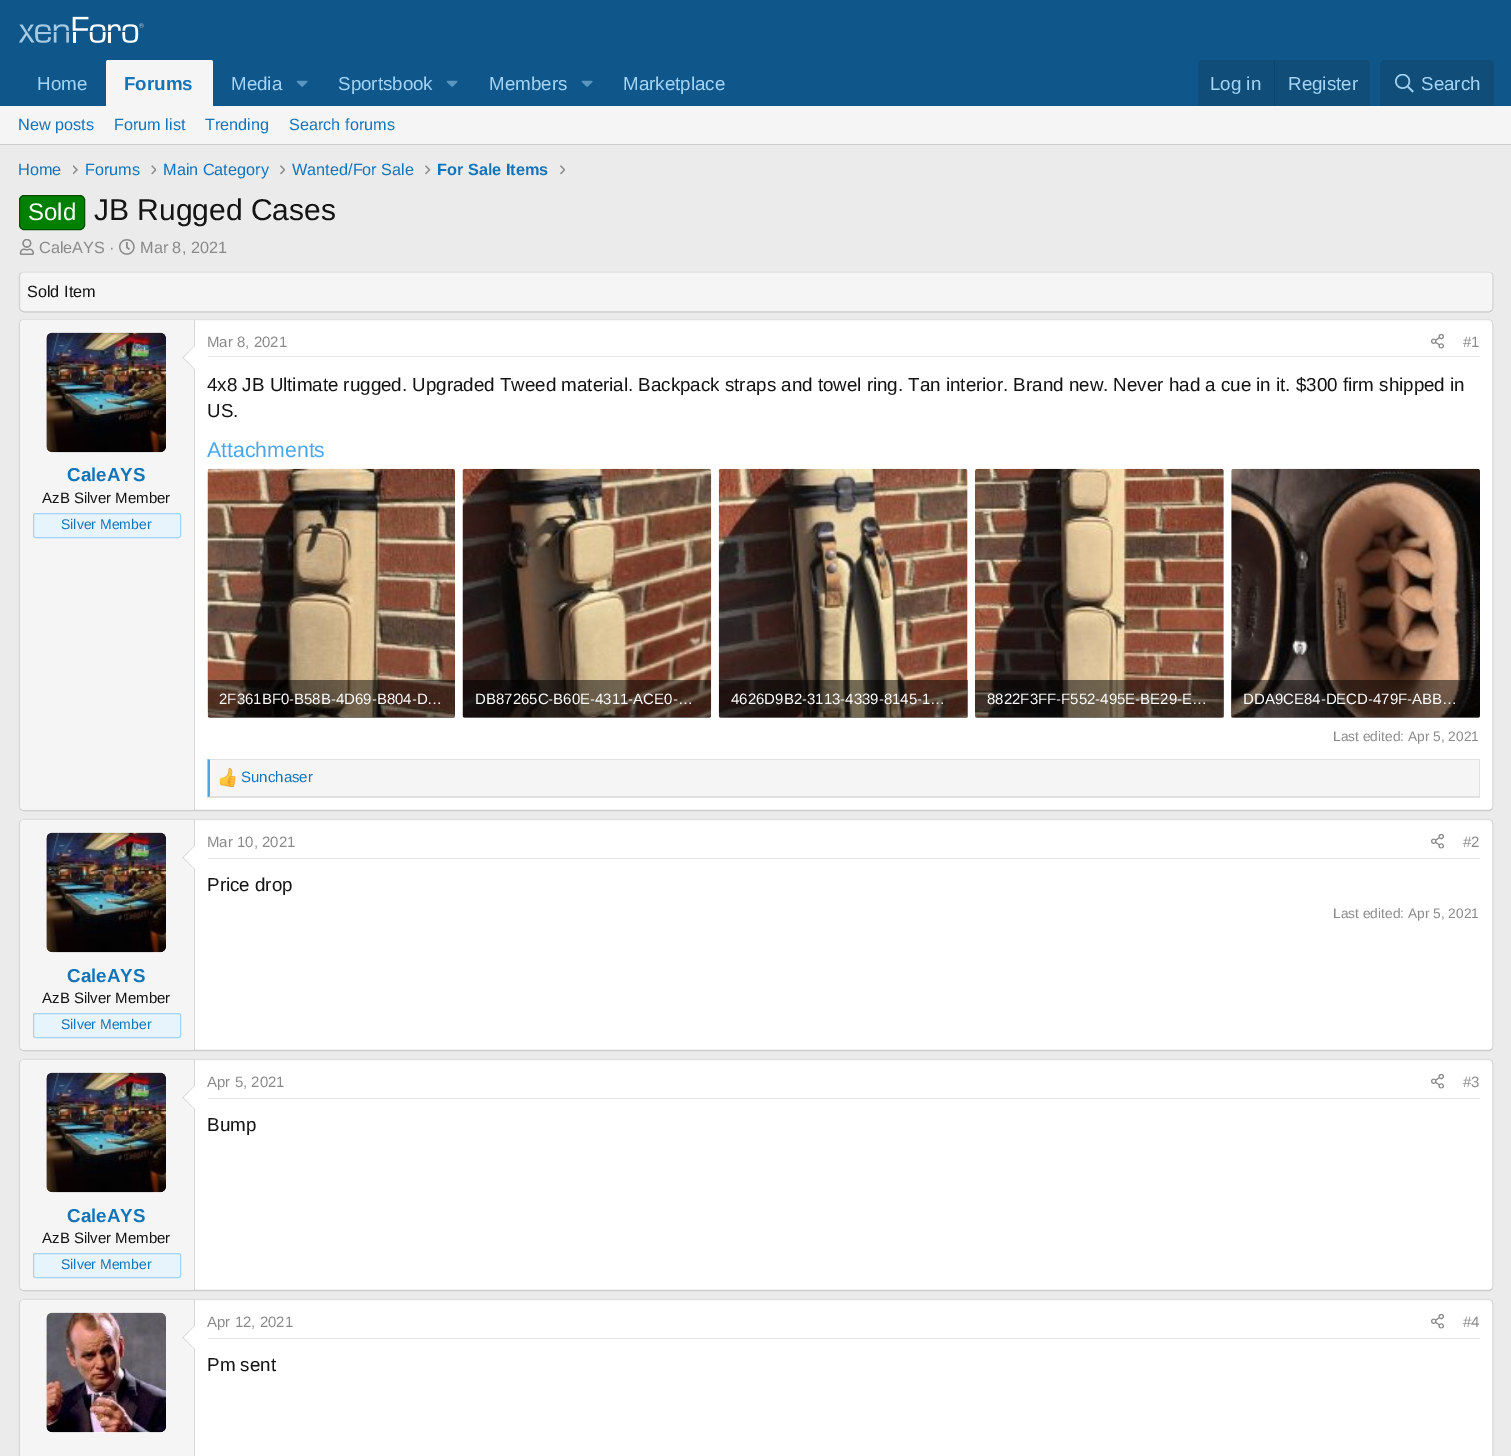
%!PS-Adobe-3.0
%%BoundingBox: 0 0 1511 1456
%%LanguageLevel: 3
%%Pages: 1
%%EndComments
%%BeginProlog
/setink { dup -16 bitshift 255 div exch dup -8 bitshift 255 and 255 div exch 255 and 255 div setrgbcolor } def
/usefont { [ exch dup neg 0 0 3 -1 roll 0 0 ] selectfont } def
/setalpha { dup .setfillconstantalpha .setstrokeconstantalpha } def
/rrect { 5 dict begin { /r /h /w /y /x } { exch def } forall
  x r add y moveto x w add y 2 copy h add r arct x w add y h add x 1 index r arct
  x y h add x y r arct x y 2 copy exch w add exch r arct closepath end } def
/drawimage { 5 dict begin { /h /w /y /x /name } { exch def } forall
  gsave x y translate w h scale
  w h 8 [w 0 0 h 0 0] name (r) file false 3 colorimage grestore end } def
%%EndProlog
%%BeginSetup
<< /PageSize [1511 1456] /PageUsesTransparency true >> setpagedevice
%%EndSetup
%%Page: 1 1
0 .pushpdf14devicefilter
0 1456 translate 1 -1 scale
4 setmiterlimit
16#EBEBEB setink
0 0 1511 1456 rectfill
16#0F578A setink
0 0 1511 106 rectfill
(img1.raw) 19 16 125 27 drawimage
/LiberationSans-Regular 18.75 usefont
16#A3D4F5 setink
37 90 moveto (Home) show
16#F5F5F5 setink
108.5 60 moveto 210.5 60 lineto 212 60 213 61 213 62.5 curveto 213 106 lineto 106 106 lineto 106 62.5 lineto 106 61 107 60 108.5 60 curveto closepath fill
/LiberationSans-Bold 18.75 usefont
16#1474B8 setink
124 90 moveto (Forums) show
/LiberationSans-Regular 18.75 usefont
16#A3D4F5 setink
231 90 moveto (Media) show
(img2.raw) 296 80 12 7 drawimage
338 90 moveto (Sportsbook) show
(img2.raw) 446 80 12 7 drawimage
489 90 moveto (Members) show
(img2.raw) 581 80 12 7 drawimage
623 90 moveto (Marketplace) show
16#104D78 setink
1203 60 moveto 1365 60 lineto 1368 60 1370 62 1370 65 curveto 1370 106 lineto 1198 106 lineto 1198 65 lineto 1198 62 1200 60 1203 60 curveto closepath fill
16#A3D4F5 setink
1210 90 moveto (Log in) show
16#114469 setink
1274 60 1 46 rectfill
16#A3D4F5 setink
1288 90 moveto (Register) show
16#104D78 setink
1385 60 moveto 1489 60 lineto 1492 60 1494 62 1494 65 curveto 1494 106 lineto 1380 106 lineto 1380 65 lineto 1380 62 1382 60 1385 60 curveto closepath fill
(img3.raw) 1395 74 19 19 drawimage
16#A3D4F5 setink
1421 90 moveto (Search) show
16#F5F5F5 setink
0 106 1511 38 rectfill
16#CCCCCC setink
0 144 1511 1 rectfill
/LiberationSans-Regular 16.25 usefont
16#1474B8 setink
[
    [(New posts) 18 130]
    [(Forum list) 114 130]
    [(Trending) 205 130]
    [(Search forums) 289 130]
    [(Home) 18 175]
] { aload pop moveto show } forall
(img4.raw) 73 165 5 10 drawimage
85 175 moveto (Forums) show
(img5.raw) 151 165 5 10 drawimage
163 175 moveto (Main Category) show
(img6.raw) 280 165 5 10 drawimage
292 175 moveto (Wanted/For Sale) show
(img7.raw) 425 165 6 10 drawimage
/LiberationSans-Bold 16.25 usefont
437 175 moveto (For Sale Items) show
(img6.raw) 560 165 5 10 drawimage
16#008000 setink
19.5 195.5 65 34 4.5 rrect gsave fill grestore
16#004D00 setink
stroke
/LiberationSans-Regular 24 usefont
16#FFFFFF setink
28 220 moveto (Sold) show
/LiberationSans-Regular 30 usefont
16#141414 setink
94 220 moveto (JB Rugged Cases) show
(img8.raw) 19 239 15 16 drawimage
/LiberationSans-Regular 16.25 usefont
16#8A8A8A setink
39 253 moveto (CaleAYS ·) show
(img9.raw) 119 239 16 16 drawimage
140 253 moveto (Mar 8, 2021) show
16#F5F5F5 setink
19 271 1475 42 5 rrect fill
16#E0E0E0 setink
1.2 setlinewidth
20.5 273 moveto 24 272 lineto 1489 272 lineto 1492 273 lineto stroke
16#D6D6D6 setink
1492 273 moveto 1492.5 274 1493 275 1493 276 curveto 1493 307.5 lineto 1493 308.5 1492.5 310 1492 310.5 curveto stroke
16#CCCCCC setink
1492 310.5 moveto 1489 312 lineto 24 312 lineto 20.5 310.5 lineto stroke
16#D6D6D6 setink
20.5 310.5 moveto 20 310 19.5 308.5 19.5 307.5 curveto 19.5 276 lineto 19.5 275 20 274 20.5 273 curveto stroke
16#141414 setink
27 297 moveto (Sold Item) show
16#FFFFFF setink
19 319 1475 492 5 rrect fill
16#E0E0E0 setink
20.5 320.5 moveto 24 319.5 lineto 1489 319.5 lineto 1492 320.5 lineto stroke
16#D6D6D6 setink
1492 320.5 moveto 1493 324 lineto 1493 806 lineto 1492 809.5 lineto stroke
16#CCCCCC setink
1492 809.5 moveto 1489 810.5 lineto 24 810.5 lineto 20.5 809.5 lineto stroke
16#D6D6D6 setink
20.5 809.5 moveto 19.5 806 lineto 19.5 324 lineto 20.5 320.5 lineto stroke
16#F5F5F5 setink
24 320 moveto 195 320 lineto 195 810 lineto 24 810 lineto 22 810 20 808 20 806 curveto 20 324 lineto 20 322 22 320 24 320 curveto closepath fill
16#D6D6D6 setink
194 320 1 490 rectfill
16#FFFFFF setink
46 333 120 120 6 rrect fill
(img10.raw) 46 332 120 121 drawimage
16#D6D6D6 setink
195 345 moveto 195 370 lineto 182.5 357.5 lineto closepath fill
16#FFFFFF setink
195 346 moveto 195 369 lineto 184 357.5 lineto closepath fill
/LiberationSans-Bold 18.75 usefont
16#1474B8 setink
67 481 moveto (CaleAYS) show
/LiberationSans-Regular 15 usefont
16#141414 setink
42 503 moveto (AzB Silver Member) show
16#E8F4FC setink
33.5 513.5 147 24 2 rrect gsave fill grestore
16#A3D4F5 setink
1 setlinewidth
stroke
/LiberationSans-Regular 14 usefont
16#1474B8 setink
61 529 moveto (Silver Member) show
16#E5E5E5 setink
208 356 1272 1 rectfill
/LiberationSans-Regular 15 usefont
16#8A8A8A setink
207 347 moveto (Mar 8, 2021) show
(img11.raw) 1431 334 13 15 drawimage
1463 347 moveto (#1) show
/LiberationSans-Regular 18.75 usefont
16#141414 setink
207 391 moveto (4x8 JB Ultimate rugged. Upgraded Tweed material. Backpack straps and towel ring. Tan interior. Brand new. Never had a cue in it. $300 firm shipped in) show
207 417 moveto (US.) show
/LiberationSans-Regular 21.25 usefont
16#47A7EB setink
207 457 moveto (Attachments) show
16#F5F5F5 setink
208 469 247 249 2.5 rrect fill
(img12.raw) 207 468 248 250 drawimage
0.5 setalpha
16#000000 setink
208 680 moveto 455 680 lineto 455 715.5 lineto 455 717 454 718 452.5 718 curveto 210.5 718 lineto 209 718 208 717 208 715.5 curveto closepath fill
/LiberationSans-Regular 15 usefont
1 setalpha
16#FFFFFF setink
219 704 moveto (2F361BF0-B58B-4D69-B804-D…) show
16#F5F5F5 setink
463 469 248 249 2.5 rrect fill
(img13.raw) 462 468 250 250 drawimage
0.5 setalpha
16#000000 setink
463 680 moveto 711 680 lineto 711 715.5 lineto 711 717 710 718 708.5 718 curveto 465.5 718 lineto 464 718 463 717 463 715.5 curveto closepath fill
1 setalpha
16#FFFFFF setink
475 704 moveto (DB87265C-B60E-4311-ACE0-…) show
16#F5F5F5 setink
719 469 249 249 2.5 rrect fill
(img14.raw) 718 468 250 250 drawimage
0.5 setalpha
16#000000 setink
719 680 moveto 968 680 lineto 968 715.5 lineto 968 717 967 718 965.5 718 curveto 721.5 718 lineto 720 718 719 717 719 715.5 curveto closepath fill
1 setalpha
16#FFFFFF setink
731 704 moveto (4626D9B2-3113-4339-8145-1…) show
16#F5F5F5 setink
975 469 249 249 2.5 rrect fill
(img15.raw) 975 468 249 250 drawimage
0.5 setalpha
16#000000 setink
975 680 moveto 1224 680 lineto 1224 715.5 lineto 1224 717 1223 718 1221.5 718 curveto 977.5 718 lineto 976 718 975 717 975 715.5 curveto closepath fill
1 setalpha
16#FFFFFF setink
987 704 moveto (8822F3FF-F552-495E-BE29-E…) show
16#F5F5F5 setink
1231 469 249 249 2.5 rrect fill
(img16.raw) 1231 468 249 250 drawimage
0.5 setalpha
16#000000 setink
1231 680 moveto 1480 680 lineto 1480 715.5 lineto 1480 717 1479 718 1477.5 718 curveto 1233.5 718 lineto 1232 718 1231 717 1231 715.5 curveto closepath fill
1 setalpha
16#FFFFFF setink
1243 704 moveto (DDA9CE84-DECD-479F-ABB…) show
/LiberationSans-Regular 13.75 usefont
16#8A8A8A setink
1333 741 moveto (Last edited: Apr 5, 2021) show
16#F5F5F5 setink
210 760 1269 36 rectfill
16#E0E0E0 setink
208 759 moveto 1480 759 lineto 1479 760 lineto 210 760 lineto closepath fill
1479 759 1 39 rectfill
1480 798 moveto 208 798 lineto 210 796 lineto 1479 796 lineto closepath fill
16#47A7EB setink
207.5 797.5 moveto 207.5 759 lineto 210 760 lineto 210 796 lineto closepath fill
(img17.raw) 219 768 17 19 drawimage
/LiberationSans-Regular 15 usefont
16#1474B8 setink
241 782 moveto (Sunchaser) show
16#FFFFFF setink
19 819 1475 232 5 rrect fill
16#E0E0E0 setink
1.2 setlinewidth
20.5 820.5 moveto 24 819.5 lineto 1489 819.5 lineto 1492 820.5 lineto stroke
16#D6D6D6 setink
1492 820.5 moveto 1493 823.5 lineto 1493 1009 lineto 1493 1046 lineto 1492 1049.5 lineto stroke
16#CCCCCC setink
1492 1049.5 moveto 1489 1050.5 lineto 24 1050.5 lineto 20.5 1049.5 lineto stroke
16#D6D6D6 setink
20.5 1049.5 moveto 19.5 1046 lineto 19.5 823.5 lineto 20.5 820.5 lineto stroke
16#E5E5E5 setink
208 858 1272 1 rectfill
16#8A8A8A setink
207 847 moveto (Mar 10, 2021) show
(img11.raw) 1431 834 13 15 drawimage
1463 847 moveto (#2) show
/LiberationSans-Regular 18.75 usefont
16#141414 setink
207 891 moveto (Price drop) show
/LiberationSans-Regular 13.75 usefont
16#8A8A8A setink
1333 918 moveto (Last edited: Apr 5, 2021) show
16#F5F5F5 setink
24 820 moveto 195 820 lineto 195 1050 lineto 24 1050 lineto 22 1050 20 1048 20 1046 curveto 20 824 lineto 20 822 22 820 24 820 curveto closepath fill
16#D6D6D6 setink
194 820 1 230 rectfill
16#FFFFFF setink
46 833 120 120 6 rrect fill
(img10.raw) 46 832 120 121 drawimage
16#D6D6D6 setink
195 845 moveto 195 870 lineto 182.5 857.5 lineto closepath fill
16#FFFFFF setink
195 846 moveto 195 869 lineto 184 857.5 lineto closepath fill
/LiberationSans-Bold 18.75 usefont
16#1474B8 setink
67 982 moveto (CaleAYS) show
/LiberationSans-Regular 15 usefont
16#141414 setink
42 1003 moveto (AzB Silver Member) show
16#E8F4FC setink
33.5 1013.5 147 24 2 rrect gsave fill grestore
16#A3D4F5 setink
1 setlinewidth
stroke
/LiberationSans-Regular 14 usefont
16#1474B8 setink
61 1029 moveto (Silver Member) show
16#FFFFFF setink
19 1059 1475 232 5 rrect fill
16#E0E0E0 setink
1.2 setlinewidth
20.5 1060.5 moveto 24 1059.5 lineto 1489 1059.5 lineto 1492 1060.5 lineto stroke
16#D6D6D6 setink
1492 1060.5 moveto 1493 1063.5 lineto 1493 1249 lineto 1493 1286 lineto 1492 1289.5 lineto stroke
16#CCCCCC setink
1492 1289.5 moveto 1489 1290.5 lineto 24 1290.5 lineto 20.5 1289.5 lineto stroke
16#D6D6D6 setink
20.5 1289.5 moveto 19.5 1286 lineto 19.5 1063.5 lineto 20.5 1060.5 lineto stroke
16#E5E5E5 setink
208 1098 1272 1 rectfill
/LiberationSans-Regular 15 usefont
16#8A8A8A setink
207 1087 moveto (Apr 5, 2021) show
(img11.raw) 1431 1074 13 15 drawimage
1463 1087 moveto (#3) show
/LiberationSans-Regular 18.75 usefont
16#141414 setink
207 1131 moveto (Bump) show
16#F5F5F5 setink
24 1060 moveto 195 1060 lineto 195 1290 lineto 24 1290 lineto 22 1290 20 1288 20 1286 curveto 20 1064 lineto 20 1062 22 1060 24 1060 curveto closepath fill
16#D6D6D6 setink
194 1060 1 230 rectfill
16#FFFFFF setink
46 1073 120 120 6 rrect fill
(img10.raw) 46 1072 120 121 drawimage
16#D6D6D6 setink
195 1085 moveto 195 1110 lineto 182.5 1097.5 lineto closepath fill
16#FFFFFF setink
195 1086 moveto 195 1109 lineto 184 1097.5 lineto closepath fill
/LiberationSans-Bold 18.75 usefont
16#1474B8 setink
67 1222 moveto (CaleAYS) show
/LiberationSans-Regular 15 usefont
16#141414 setink
42 1243 moveto (AzB Silver Member) show
16#E8F4FC setink
33.5 1253.5 147 24 2 rrect gsave fill grestore
16#A3D4F5 setink
1 setlinewidth
stroke
/LiberationSans-Regular 14 usefont
16#1474B8 setink
61 1269 moveto (Silver Member) show
16#FFFFFF setink
19 1299 1475 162 5 rrect fill
16#E0E0E0 setink
1.2 setlinewidth
20.5 1300.5 moveto 24 1299.5 lineto 1489 1299.5 lineto 1492 1300.5 lineto stroke
16#D6D6D6 setink
1492 1300.5 moveto 1493 1303.5 lineto 1493 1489 lineto 1493 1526 lineto 1492 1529.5 lineto stroke
20.5 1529.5 moveto 19.5 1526 lineto 19.5 1303.5 lineto 20.5 1300.5 lineto stroke
16#F5F5F5 setink
24 1300 moveto 195 1300 lineto 195 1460 lineto 24 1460 lineto 22 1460 20 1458 20 1456 curveto 20 1304 lineto 20 1302 22 1300 24 1300 curveto closepath fill
16#D6D6D6 setink
194 1300 1 156 rectfill
16#FFFFFF setink
46 1313 120 120 6 rrect fill
(img18.raw) 46 1312 120 121 drawimage
16#D6D6D6 setink
195 1325 moveto 195 1350 lineto 182.5 1337.5 lineto closepath fill
16#FFFFFF setink
195 1326 moveto 195 1349 lineto 184 1337.5 lineto closepath fill
16#E5E5E5 setink
208 1338 1272 1 rectfill
/LiberationSans-Regular 15 usefont
16#8A8A8A setink
207 1327 moveto (Apr 12, 2021) show
(img11.raw) 1431 1314 13 15 drawimage
1463 1327 moveto (#4) show
/LiberationSans-Regular 18.75 usefont
16#141414 setink
207 1371 moveto (Pm sent) show
.poppdf14devicefilter showpage
%%EOF
